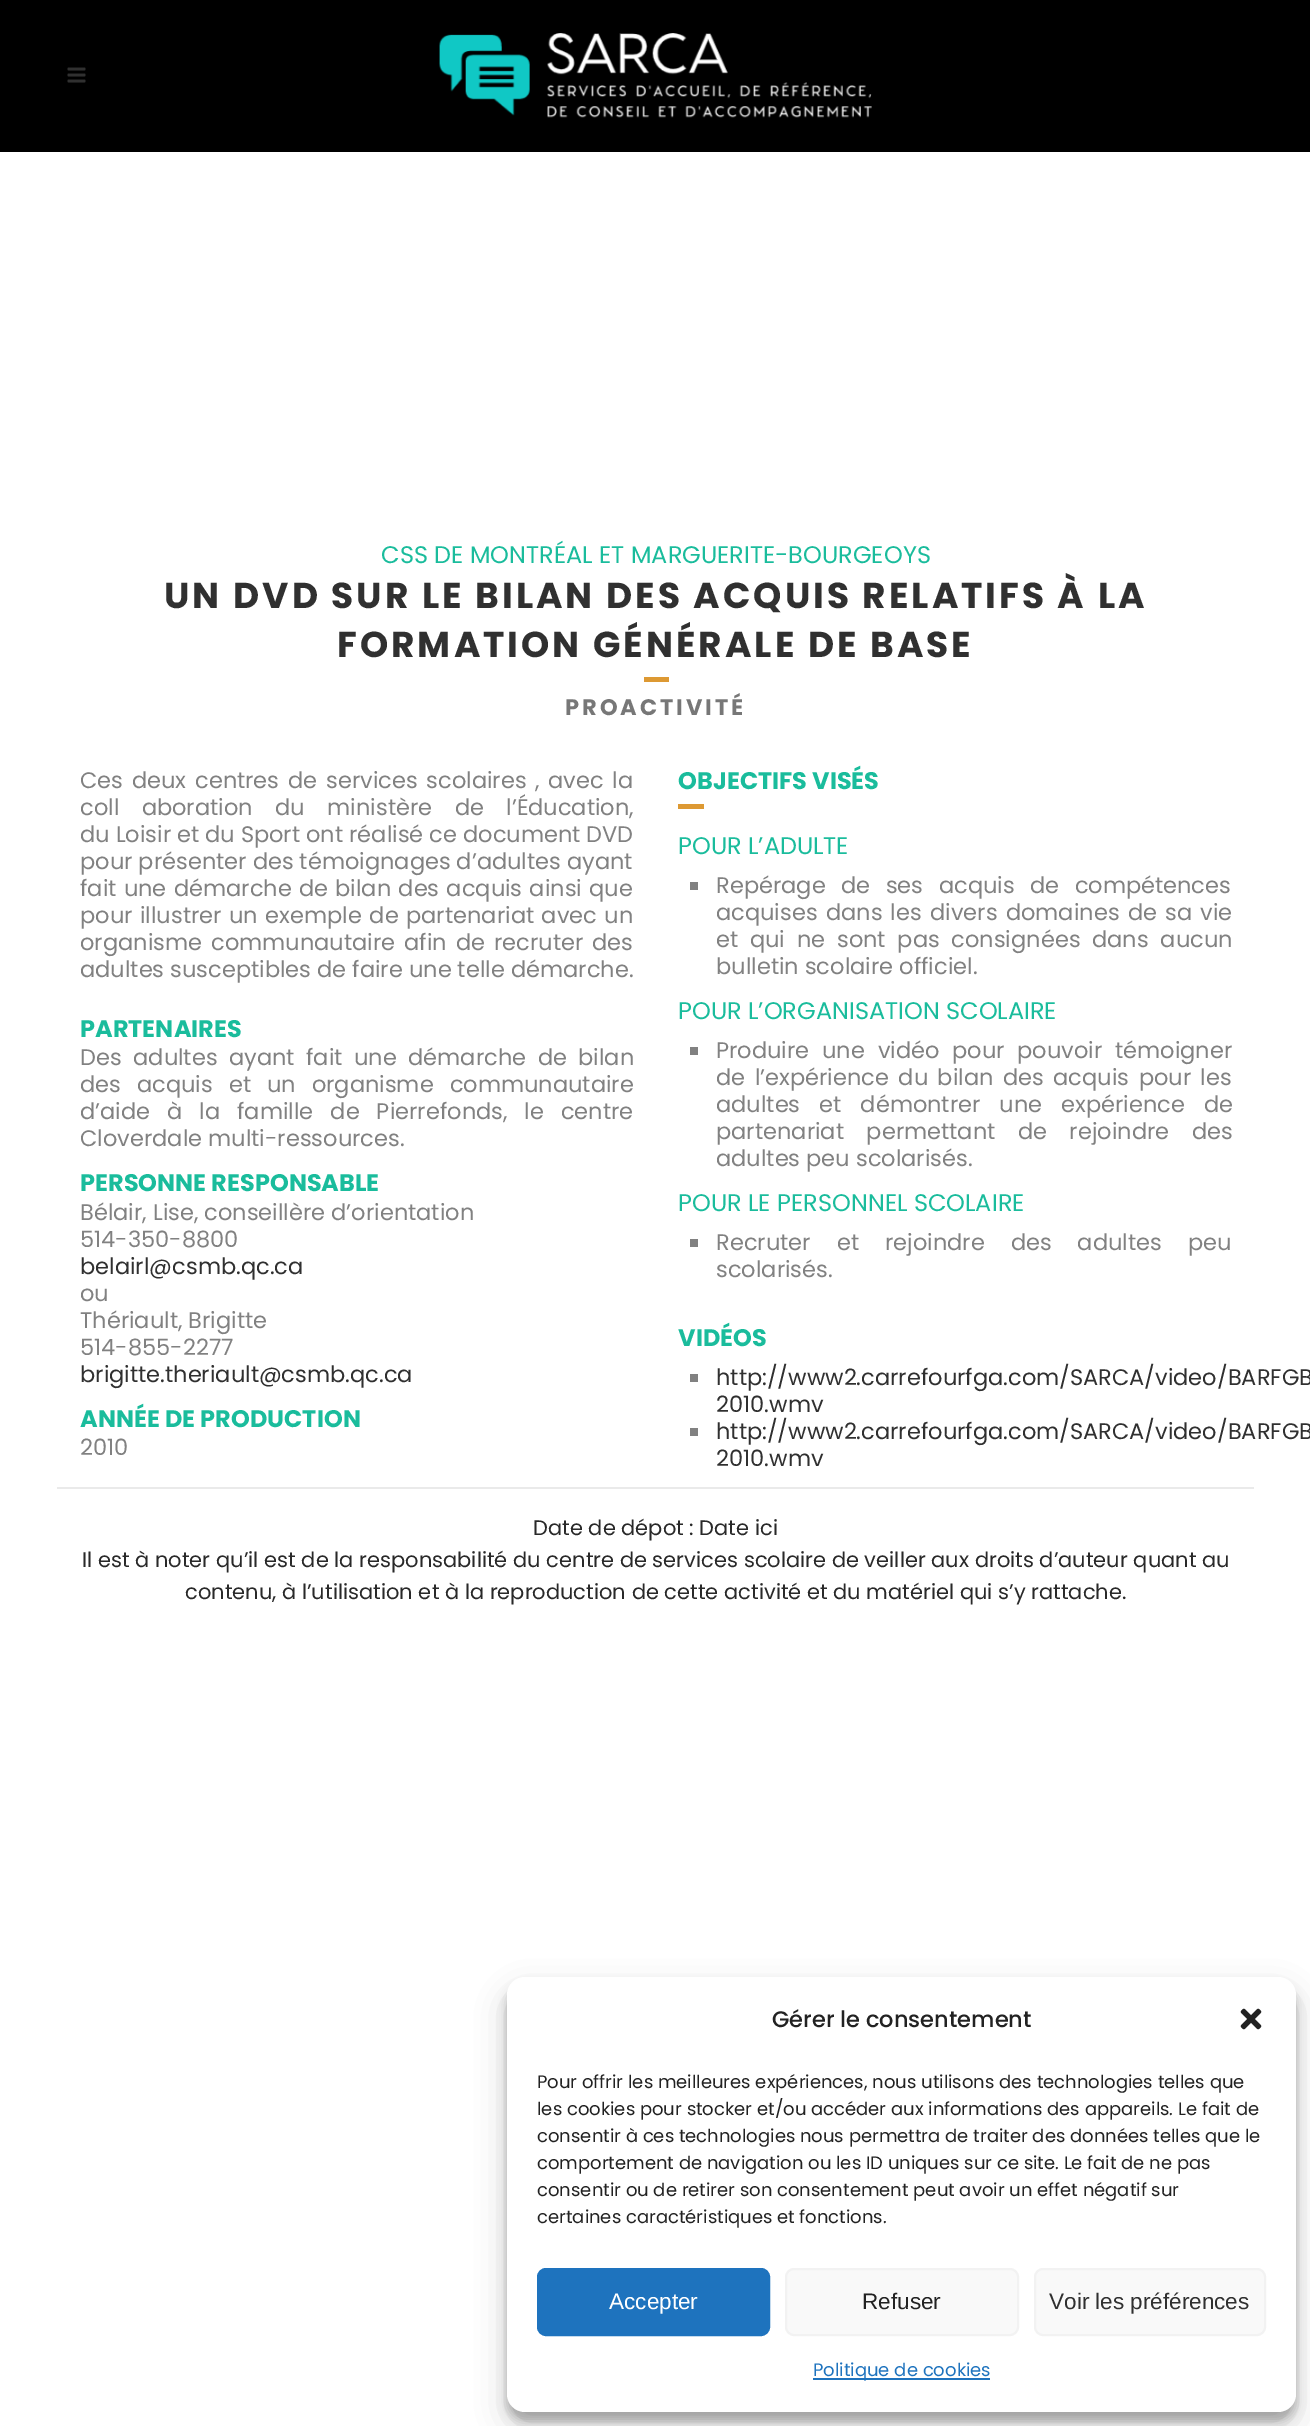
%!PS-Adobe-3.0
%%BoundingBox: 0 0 1310 2426
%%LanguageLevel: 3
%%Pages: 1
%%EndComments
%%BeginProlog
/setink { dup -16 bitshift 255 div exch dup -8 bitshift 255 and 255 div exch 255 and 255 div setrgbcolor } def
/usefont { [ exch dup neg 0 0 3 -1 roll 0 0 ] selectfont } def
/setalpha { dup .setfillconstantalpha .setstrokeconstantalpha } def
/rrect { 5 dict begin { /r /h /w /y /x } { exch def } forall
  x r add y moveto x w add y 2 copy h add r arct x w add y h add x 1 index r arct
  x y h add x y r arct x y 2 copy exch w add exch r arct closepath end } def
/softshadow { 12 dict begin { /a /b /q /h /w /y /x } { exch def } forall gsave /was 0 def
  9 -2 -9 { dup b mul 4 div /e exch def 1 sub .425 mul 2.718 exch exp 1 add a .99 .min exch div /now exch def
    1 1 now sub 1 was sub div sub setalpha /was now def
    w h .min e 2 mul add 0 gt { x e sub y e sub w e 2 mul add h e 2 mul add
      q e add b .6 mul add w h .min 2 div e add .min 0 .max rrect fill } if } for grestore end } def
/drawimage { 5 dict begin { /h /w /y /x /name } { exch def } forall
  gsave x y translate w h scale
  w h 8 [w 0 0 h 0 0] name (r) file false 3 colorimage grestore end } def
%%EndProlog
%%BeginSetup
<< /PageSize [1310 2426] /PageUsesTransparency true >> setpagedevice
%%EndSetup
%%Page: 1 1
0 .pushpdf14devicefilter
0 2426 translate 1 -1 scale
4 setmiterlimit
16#FFFFFF setink
0 0 1310 2426 rectfill
16#000000 setink
0 0 1310 152 rectfill
(img1.raw) 67 67 19 16 drawimage
(img2.raw) 439 33 433 85 drawimage
16#EAEAEA setink
57 1487 1197 2 rectfill
/Poppins-Regular 24 usefont
16#1ABC9C setink
381 563 moveto (CSS DE MONTRÉAL ET MARGUERITE-BOURGEOYS) show
/Poppins-Bold 36 usefont
16#303030 setink
164 608 moveto 3 0 (UN DVD SUR LE BILAN DES ACQUIS RELATIFS À LA) ashow
337 657 moveto 3 0 (FORMATION GÉNÉRALE DE BASE) ashow
16#DD9933 setink
644 677 25 5 rectfill
/Poppins-Bold 22.5 usefont
16#777777 setink
565 715 moveto 3 0 (PROACTIVITÉ) ashow
/Poppins-Regular 22.5 usefont
16#818181 setink
80 788 moveto 2.75 0 32 (Ces deux centres de services scolaires , avec la) widthshow
80 815 moveto 16.5 0 32 (coll aboration du ministère de l’Éducation,) widthshow
80 842 moveto (du Loisir et du Sport ont réalisé ce document DVD) show
80 869 moveto (pour présenter des témoignages d’adultes ayant) show
80 896 moveto 1.25 0 32 (fait une démarche de bilan des acquis ainsi que) widthshow
80 923 moveto 1.5 0 32 (pour illustrer un exemple de partenariat avec un) widthshow
80 950 moveto 3 0 32 (organisme communautaire afin de recruter des) widthshow
80 977 moveto (adultes susceptibles de faire une telle démarche.) show
/Poppins-Bold 24 usefont
16#1ABC9C setink
80 1037 moveto (PARTENAIRES) show
/Poppins-Regular 22.5 usefont
16#818181 setink
80 1065 moveto 5.5 0 32 (Des adultes ayant fait une démarche de bilan) widthshow
80 1092 moveto 10 0 32 (des acquis et un organisme communautaire) widthshow
80 1119 moveto 11 0 32 (d’aide à la famille de Pierrefonds, le centre) widthshow
80 1146 moveto (Cloverdale multi-ressources.) show
/Poppins-Bold 24 usefont
16#1ABC9C setink
80 1191 moveto (PERSONNE RESPONSABLE) show
/Poppins-Regular 22.5 usefont
16#818181 setink
80 1220 moveto (Bélair, Lise, conseillère d’orientation) show
80 1247 moveto (514-350-8800) show
16#303030 setink
80 1274 moveto (belairl@csmb.qc.ca) show
16#818181 setink
[
    [(ou) 80 1301]
    [(Thériault, Brigitte) 80 1328]
    [(514-855-2277) 80 1355]
] { aload pop moveto show } forall
16#303030 setink
80 1382 moveto (brigitte.theriault@csmb.qc.ca) show
/Poppins-Bold 24 usefont
16#1ABC9C setink
80 1427 moveto (ANNÉE DE PRODUCTION) show
/Poppins-Regular 22.5 usefont
16#818181 setink
80 1455 moveto (2010) show
/Poppins-Bold 24 usefont
16#1ABC9C setink
678 789 moveto (OBJECTIFS VISÉS) show
16#DD9933 setink
678 804 26 5 rectfill
/Poppins-Regular 24 usefont
16#1ABC9C setink
678 854 moveto (POUR L’ADULTE) show
16#818181 setink
690 882 8 8 rectfill
/Poppins-Regular 22.5 usefont
716 893 moveto 9.5 0 32 (Repérage de ses acquis de compétences) widthshow
716 920 moveto 2.25 0 32 (acquises dans les divers domaines de sa vie) widthshow
716 947 moveto 5.75 0 32 (et qui ne sont pas consignées dans aucun) widthshow
716 974 moveto (bulletin scolaire officiel.) show
/Poppins-Regular 24 usefont
16#1ABC9C setink
678 1019 moveto (POUR L’ORGANISATION SCOLAIRE) show
16#818181 setink
690 1047 8 8 rectfill
/Poppins-Regular 22.5 usefont
716 1058 moveto 6.75 0 32 (Produire une vidéo pour pouvoir témoigner) widthshow
716 1085 moveto 3.5 0 32 (de l’expérience du bilan des acquis pour les) widthshow
716 1112 moveto 13 0 32 (adultes et démontrer une expérience de) widthshow
716 1139 moveto 16.5 0 32 (partenariat permettant de rejoindre des) widthshow
716 1166 moveto (adultes peu scolarisés.) show
/Poppins-Regular 24 usefont
16#1ABC9C setink
678 1211 moveto (POUR LE PERSONNEL SCOLAIRE) show
16#818181 setink
690 1239 8 8 rectfill
/Poppins-Regular 22.5 usefont
716 1250 moveto 20 0 32 (Recruter et rejoindre des adultes peu) widthshow
716 1277 moveto (scolarisés.) show
/Poppins-Bold 24 usefont
16#1ABC9C setink
678 1346 moveto (VIDÉOS) show
16#818181 setink
690 1374 8 8 rectfill
/Poppins-Regular 22.5 usefont
16#303030 setink
716 1385 moveto (http://www2.carrefourfga.com/SARCA/video/BARFGB) show
716 1412 moveto (2010.wmv) show
16#818181 setink
690 1428 8 8 rectfill
16#303030 setink
716 1439 moveto (http://www2.carrefourfga.com/SARCA/video/BARFGB) show
716 1466 moveto (2010.wmv) show
/Poppins-Regular 21 usefont
16#292929 setink
[
    [(Date de dépot : Date ici) 533 1535]
    [(Il est à noter qu’il est de la responsabilité du centre de services scolaire de veiller aux droits d’auteur quant au) 82 1567]
    [(contenu, à l’utilisation et à la reproduction de cette activité et du matériel qui s’y rattache.) 185 1599]
] { aload pop moveto show } forall
16#000000 setink
507 1986 789 435 18 4.5 0.23 softshadow
507 1992 789 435 18 15 0.19 softshadow
16#FFFFFF setink
507 1977 789 435 18 rrect fill
/Poppins-Medium 22.5 usefont
16#222222 setink
772 2027 moveto (Gérer le consentement) show
(img3.raw) 1240 2008 22 22 drawimage
/Poppins-Regular 18 usefont
[
    [(Pour offrir les meilleures expériences, nous utilisons des technologies telles que) 537 2088]
    [(les cookies pour stocker et/ou accéder aux informations des appareils. Le fait de) 537 2115]
    [(consentir à ces technologies nous permettra de traiter des données telles que le) 537 2142]
    [(comportement de navigation ou les ID uniques sur ce site. Le fait de ne pas) 537 2169]
    [(consentir ou de retirer son consentement peut avoir un effet négatif sur) 537 2196]
    [(certaines caractéristiques et fonctions.) 537 2223]
] { aload pop moveto show } forall
16#1E73BE setink
538 2269 231 66 8 rrect gsave fill grestore
2 setlinewidth
stroke
/LiberationSans-Regular 22.5 usefont
16#FFFFFF setink
609 2309 moveto (Accepter) show
16#F9F9F9 setink
786 2269 232 66 8 rrect gsave fill grestore
16#F2F2F2 setink
stroke
16#222222 setink
862 2309 moveto (Refuser) show
16#F9F9F9 setink
1035 2269 230 66 8 rrect gsave fill grestore
16#F2F2F2 setink
stroke
16#303030 setink
1049 2309 moveto (Voir les préférences) show
16#1E73BE setink
813 2378 177 2 rectfill
/Poppins-Regular 18 usefont
813 2376 moveto (Politique de cookies) show
.poppdf14devicefilter showpage
%%EOF
